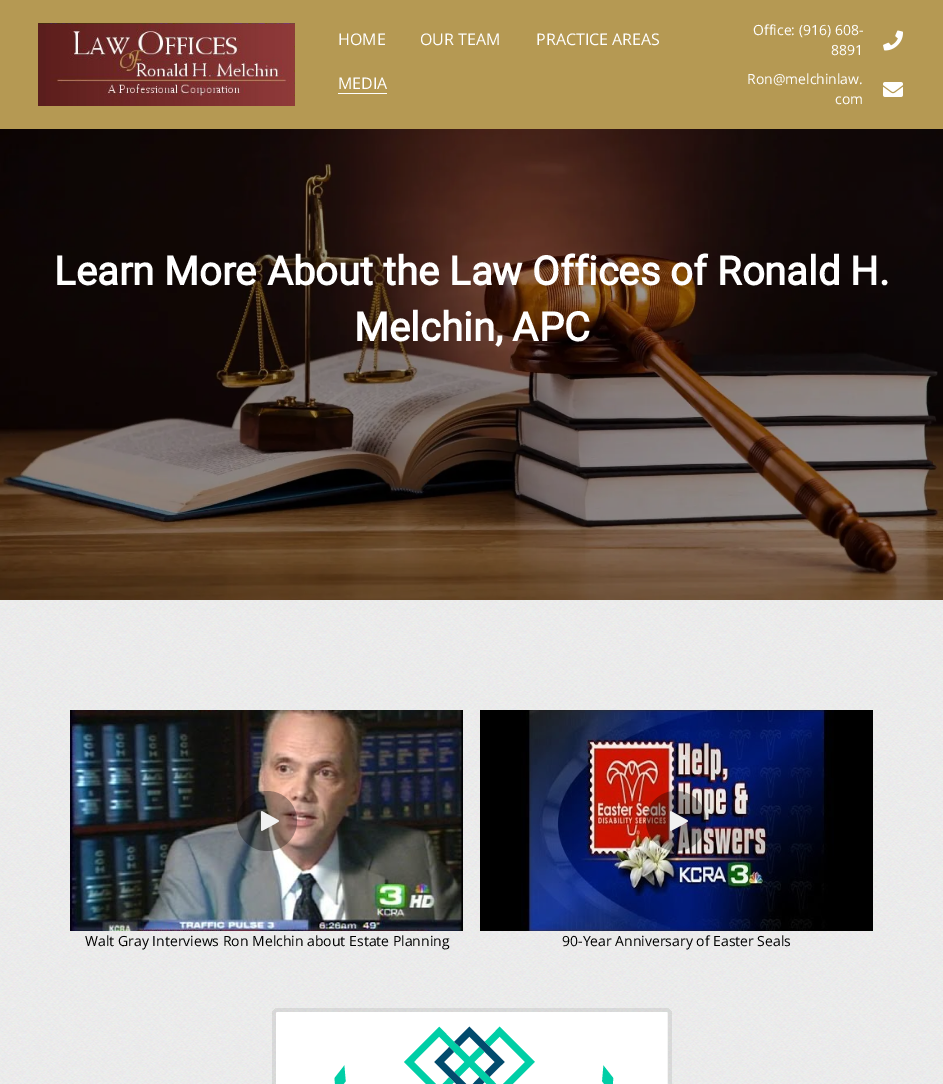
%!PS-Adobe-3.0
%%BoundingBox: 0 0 943 1084
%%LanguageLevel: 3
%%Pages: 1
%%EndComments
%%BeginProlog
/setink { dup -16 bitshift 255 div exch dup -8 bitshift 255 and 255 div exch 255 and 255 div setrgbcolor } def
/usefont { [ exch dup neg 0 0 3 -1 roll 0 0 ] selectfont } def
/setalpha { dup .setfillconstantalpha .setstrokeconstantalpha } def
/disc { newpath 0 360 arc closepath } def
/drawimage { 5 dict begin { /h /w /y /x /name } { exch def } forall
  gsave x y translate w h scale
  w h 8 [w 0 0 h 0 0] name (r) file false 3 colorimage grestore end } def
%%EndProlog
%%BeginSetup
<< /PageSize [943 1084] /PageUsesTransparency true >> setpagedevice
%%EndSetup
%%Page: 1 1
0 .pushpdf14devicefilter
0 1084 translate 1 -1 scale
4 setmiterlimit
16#FFFFFF setink
0 0 943 1084 rectfill
16#B59953 setink
0 0 943 129 rectfill
(img1.raw) 38 23 257 83 drawimage
/OpenSans-Regular 16 usefont
16#FFFFFF setink
[
    [(HOME) 338 45]
    [(OUR TEAM) 420 45]
    [(PRACTICE AREAS) 536 45]
    [(MEDIA) 338 89]
] { aload pop moveto show } forall
338 93 49 1 rectfill
/OpenSans-Regular 14 usefont
753 35 moveto (Office: \(916\) 608-) show
831 55 moveto (8891) show
(img2.raw) 883 30 20 21 drawimage
747 84 moveto (Ron@melchinlaw.) show
835 104 moveto (com) show
(img3.raw) 883 82 20 15 drawimage
(img4.raw) 0 129 943 471 drawimage
/Roboto-Bold 40 usefont
54 285 moveto (Learn More About the Law Offices of Ronald H.) show
354 341 moveto (Melchin, APC) show
(img5.raw) 0 600 943 484 drawimage
(img6.raw) 70 710 393 221 drawimage
0.33 setalpha
16#000000 setink
267 821 30 disc fill
1 setalpha
(img7.raw) 261 811 18 20 drawimage
/OpenSans-Regular 14 usefont
85 946 moveto (Walt Gray Interviews Ron Melchin about Estate Planning) show
480 710 393 221 rectfill
(img8.raw) 521 710 313 221 drawimage
0.33 setalpha
676 821 30 disc fill
1 setalpha
(img9.raw) 670 811 18 20 drawimage
562 946 moveto (90-Year Anniversary of Easter Seals) show
(img10.raw) 272 1008 400 76 drawimage
.poppdf14devicefilter showpage
%%EOF
